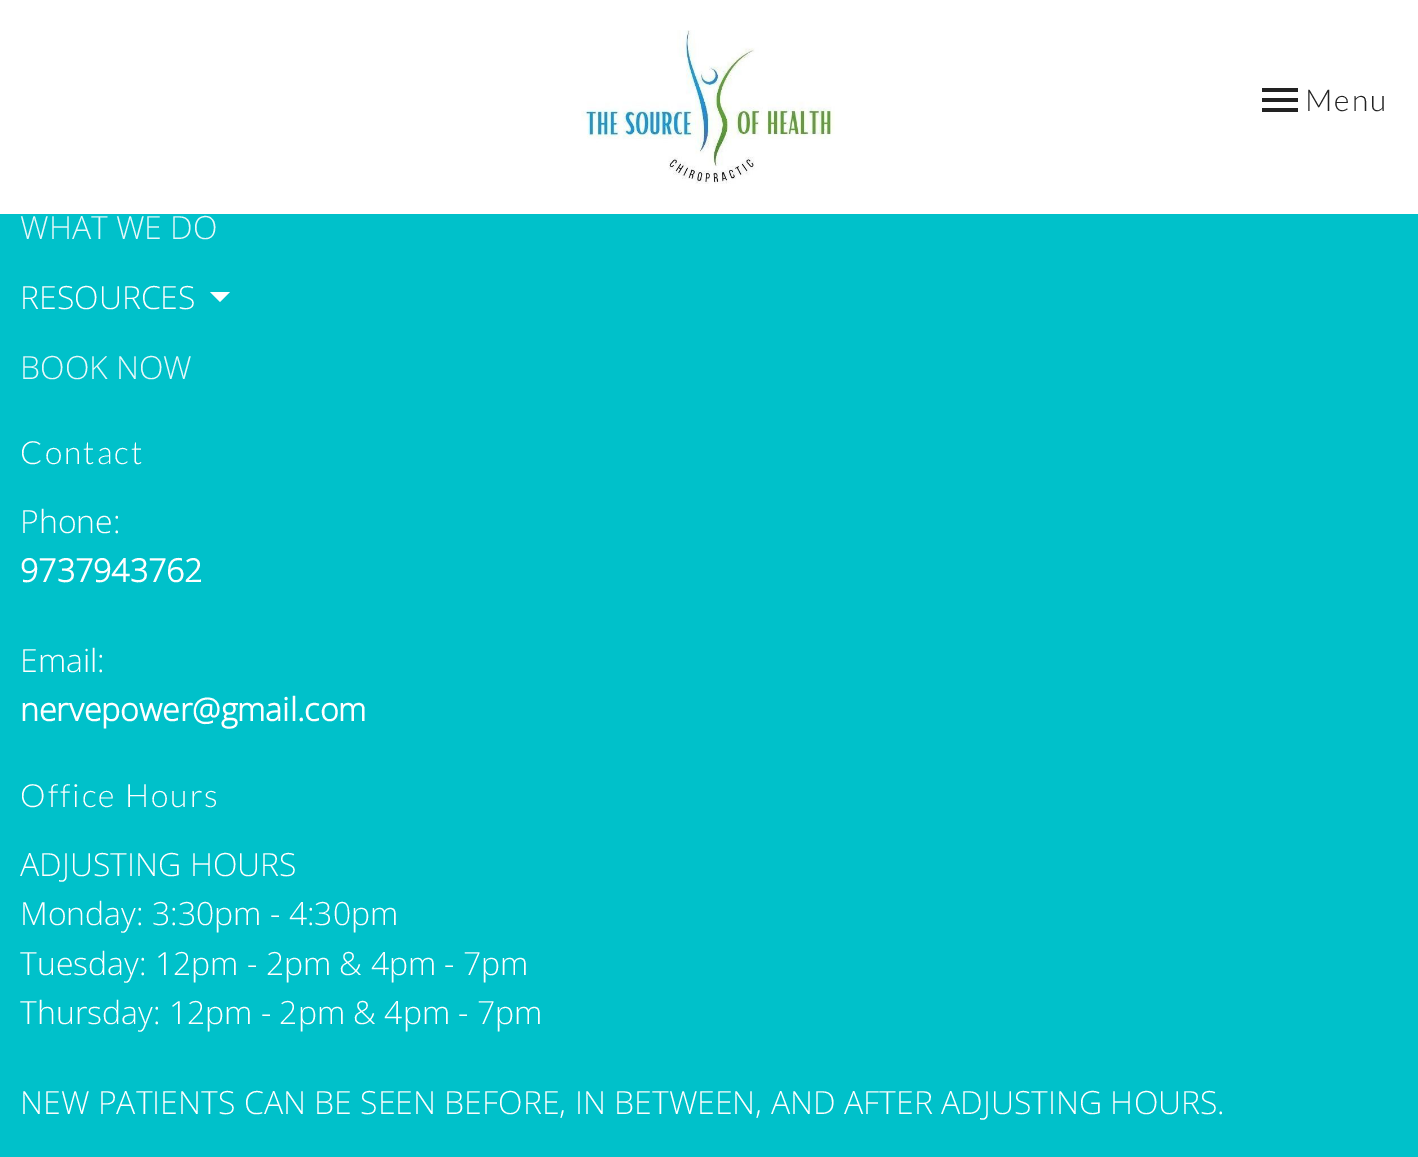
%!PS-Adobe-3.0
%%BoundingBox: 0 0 1418 1157
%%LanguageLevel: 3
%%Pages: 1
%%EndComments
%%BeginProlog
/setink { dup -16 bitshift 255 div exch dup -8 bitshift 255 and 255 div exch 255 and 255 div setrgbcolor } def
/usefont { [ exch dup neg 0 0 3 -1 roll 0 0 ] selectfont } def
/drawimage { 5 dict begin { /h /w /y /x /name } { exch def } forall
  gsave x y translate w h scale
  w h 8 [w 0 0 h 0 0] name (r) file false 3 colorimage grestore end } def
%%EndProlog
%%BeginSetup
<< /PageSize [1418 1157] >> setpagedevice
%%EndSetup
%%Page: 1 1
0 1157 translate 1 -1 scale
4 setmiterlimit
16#00C1CA setink
0 0 1418 1157 rectfill
16#FFFFFF setink
0 0 1418 214 rectfill
(img1.raw) 581 30 254 154 drawimage
16#222222 setink
1262 112 moveto 1298 112 lineto 1298 108 lineto 1262 108 lineto closepath 1262 102 moveto 1298 102 lineto 1298 98 lineto 1262 98 lineto closepath 1262 88 moveto 1262 92 lineto 1298 92 lineto 1298 88 lineto closepath fill
/Lato-Light 30 usefont
1305 111 moveto 2 0 (Menu) ashow
/OpenSans-Light 32 usefont
16#E6F9FA setink
20 239 moveto (WHAT WE DO) show
16#FFFFFF setink
20 309 moveto (RESOURCES) show
210 292 moveto 220 302 lineto 230 292 lineto closepath fill
16#E6F9FA setink
20 379 moveto (BOOK NOW) show
/Lato-Light 32 usefont
16#FFFFFF setink
20 464 moveto 2 0 (Contact) ashow
/OpenSans-Light 32 usefont
20 533 moveto (Phone:) show
/OpenSans-Bold 32 usefont
20 582 moveto (9737943762) show
/OpenSans-Light 32 usefont
20 672 moveto (Email:) show
/OpenSans-Bold 32 usefont
20 721 moveto (nervepower@gmail.com) show
/Lato-Light 32 usefont
20 807 moveto 2 0 (Office Hours) ashow
/OpenSans-Light 32 usefont
[
    [(ADJUSTING HOURS) 20 876]
    [(Monday: 3:30pm - 4:30pm) 20 925]
    [(Tuesday: 12pm - 2pm & 4pm - 7pm) 20 975]
    [(Thursday: 12pm - 2pm & 4pm - 7pm) 20 1024]
    [(NEW PATIENTS CAN BE SEEN BEFORE, IN BETWEEN, AND AFTER ADJUSTING HOURS.) 20 1114]
] { aload pop moveto show } forall
showpage
%%EOF
